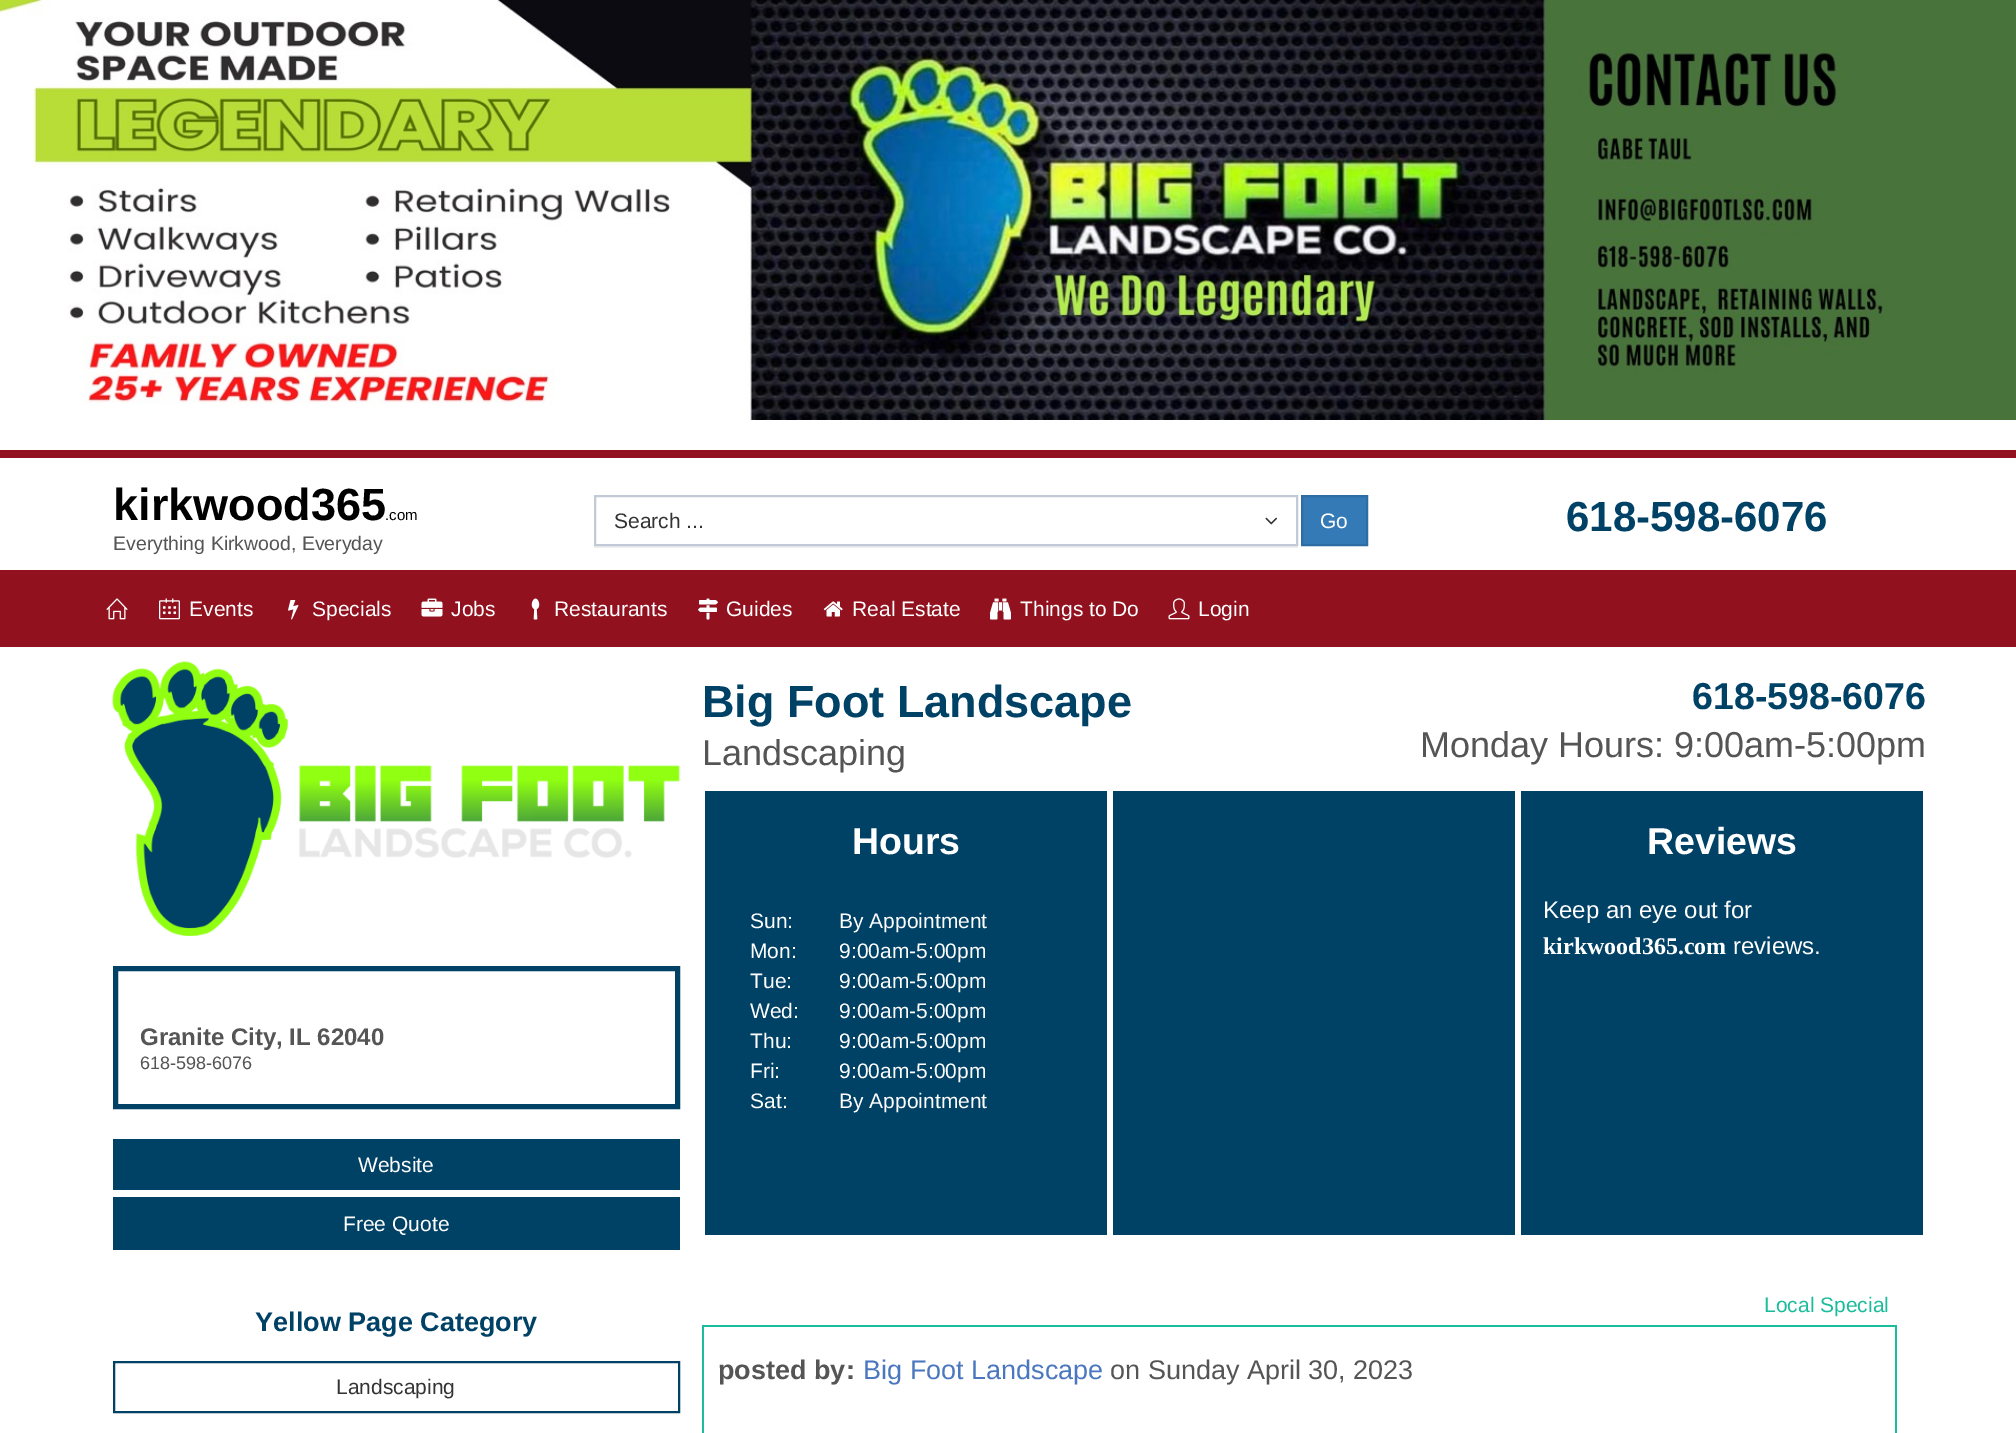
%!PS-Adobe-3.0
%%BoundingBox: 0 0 2016 1433
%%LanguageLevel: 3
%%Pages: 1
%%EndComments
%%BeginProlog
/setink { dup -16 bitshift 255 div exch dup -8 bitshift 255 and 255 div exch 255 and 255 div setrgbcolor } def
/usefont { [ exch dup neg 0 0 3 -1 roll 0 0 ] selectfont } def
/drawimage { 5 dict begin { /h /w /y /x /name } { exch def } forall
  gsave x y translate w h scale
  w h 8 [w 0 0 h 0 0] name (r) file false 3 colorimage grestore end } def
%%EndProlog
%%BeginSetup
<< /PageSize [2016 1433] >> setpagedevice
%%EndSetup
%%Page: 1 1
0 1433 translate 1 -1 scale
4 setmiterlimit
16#FFFFFF setink
0 0 2016 1433 rectfill
(img1.raw) 0 0 2016 420 drawimage
16#91111E setink
0 450 2016 8 rectfill
/LiberationSans-Bold 45 usefont
16#000000 setink
113 520 moveto (kirkwood365) show
/LiberationSans-Regular 15 usefont
385 520 moveto (.com) show
/LiberationSans-Regular 19.5 usefont
16#555555 setink
113 550 moveto (Everything Kirkwood, Everyday) show
16#EFEFEF setink
594 546 704 2 rectfill
16#C2CAD8 setink
2 setlinewidth
595 496 702 49 rectstroke
/LiberationSans-Regular 21 usefont
16#333333 setink
614 528 moveto (Search ...) show
(img2.raw) 1265 517 13 8 drawimage
16#337AB7 setink
1302 496 moveto 1367 496 lineto 1367 545 lineto 1302 545 lineto closepath gsave fill grestore
16#2E6DA4 setink
stroke
16#FFFFFF setink
1320 528 moveto (Go) show
/LiberationSans-Bold 42 usefont
16#004166 setink
1566 531 moveto (618-598-6076) show
16#91111E setink
0 570 2016 77 rectfill
(img3.raw) 106 598 22 22 drawimage
(img4.raw) 159 598 21 22 drawimage
/LiberationSans-Regular 21 usefont
16#FFFFFF setink
189 616 moveto (Events) show
(img5.raw) 288 600 11 20 drawimage
312 616 moveto (Specials) show
(img6.raw) 421 598 22 19 drawimage
451 616 moveto (Jobs) show
(img7.raw) 531 598 9 22 drawimage
554 616 moveto (Restaurants) show
(img8.raw) 698 598 20 22 drawimage
726 616 moveto (Guides) show
(img9.raw) 823 601 20 16 drawimage
852 616 moveto (Real Estate) show
(img10.raw) 990 598 21 22 drawimage
1020 616 moveto (Things to Do) show
(img11.raw) 1168 598 22 22 drawimage
1198 616 moveto (Login) show
(img12.raw) 112 661 568 275 drawimage
16#004166 setink
5 setlinewidth
115.5 968.5 562 138 rectstroke
/LiberationSans-Bold 24 usefont
16#555555 setink
140 1045 moveto (Granite City, IL 62040) show
/LiberationSans-Regular 18 usefont
140 1069 moveto (618-598-6076) show
16#004166 setink
113 1139 567 51 rectfill
/LiberationSans-Regular 21 usefont
16#FFFFFF setink
358 1172 moveto (Website) show
16#004166 setink
113 1197 567 53 rectfill
16#FFFFFF setink
343 1231 moveto (Free Quote) show
/LiberationSans-Bold 27 usefont
16#004166 setink
255 1331 moveto (Yellow Page Category) show
2 setlinewidth
114 1362 565 50 rectstroke
/LiberationSans-Regular 21 usefont
16#333333 setink
336 1394 moveto (Landscaping) show
/LiberationSans-Bold 45 usefont
16#004166 setink
702 717 moveto (Big Foot Landscape) show
/LiberationSans-Regular 36 usefont
16#555555 setink
702 765 moveto (Landscaping) show
/LiberationSans-Bold 37.5 usefont
16#004166 setink
1692 709 moveto (618-598-6076) show
/LiberationSans-Regular 36 usefont
16#555555 setink
1420 757 moveto (Monday Hours: 9:00am-5:00pm) show
16#004166 setink
705 791 402 444 rectfill
/LiberationSans-Bold 37.5 usefont
16#FFFFFF setink
852 854 moveto (Hours) show
/LiberationSans-Regular 21 usefont
[
    [(Sun:) 750 928]
    [(By Appointment) 839 928]
    [(Mon:) 750 958]
    [(9:00am-5:00pm) 839 958]
    [(Tue:) 750 988]
    [(9:00am-5:00pm) 839 988]
    [(Wed:) 750 1018]
    [(9:00am-5:00pm) 839 1018]
    [(Thu:) 750 1048]
    [(9:00am-5:00pm) 839 1048]
    [(Fri:) 750 1078]
    [(9:00am-5:00pm) 839 1078]
    [(Sat:) 750 1108]
    [(By Appointment) 839 1108]
] { aload pop moveto show } forall
16#004166 setink
1113 791 402 444 rectfill
1521 791 402 444 rectfill
/LiberationSans-Bold 37.5 usefont
16#FFFFFF setink
1647 854 moveto (Reviews) show
/LiberationSans-Regular 24 usefont
1543 918 moveto (Keep an eye out for) show
/LiberationSerif-Bold 24 usefont
1543 954 moveto (kirkwood365.com) show
/LiberationSans-Regular 24 usefont
1733 954 moveto (reviews.) show
/LiberationSans-Regular 21 usefont
16#1BBC9B setink
1764 1312 moveto (Local Special) show
[
    [702 1325 1194 2 16#1BBC9B]
    [1895 1325 2 108 16#1BBC9B]
    [702 1325 2 108 16#1BBC9B]
] { aload pop setink rectfill } forall
/LiberationSans-Bold 27 usefont
16#555555 setink
718 1379 moveto (posted by:) show
/LiberationSans-Regular 27 usefont
16#4B77BE setink
863 1379 moveto (Big Foot Landscape) show
16#555555 setink
1110 1379 moveto (on Sunday April 30, 2023) show
showpage
%%EOF
